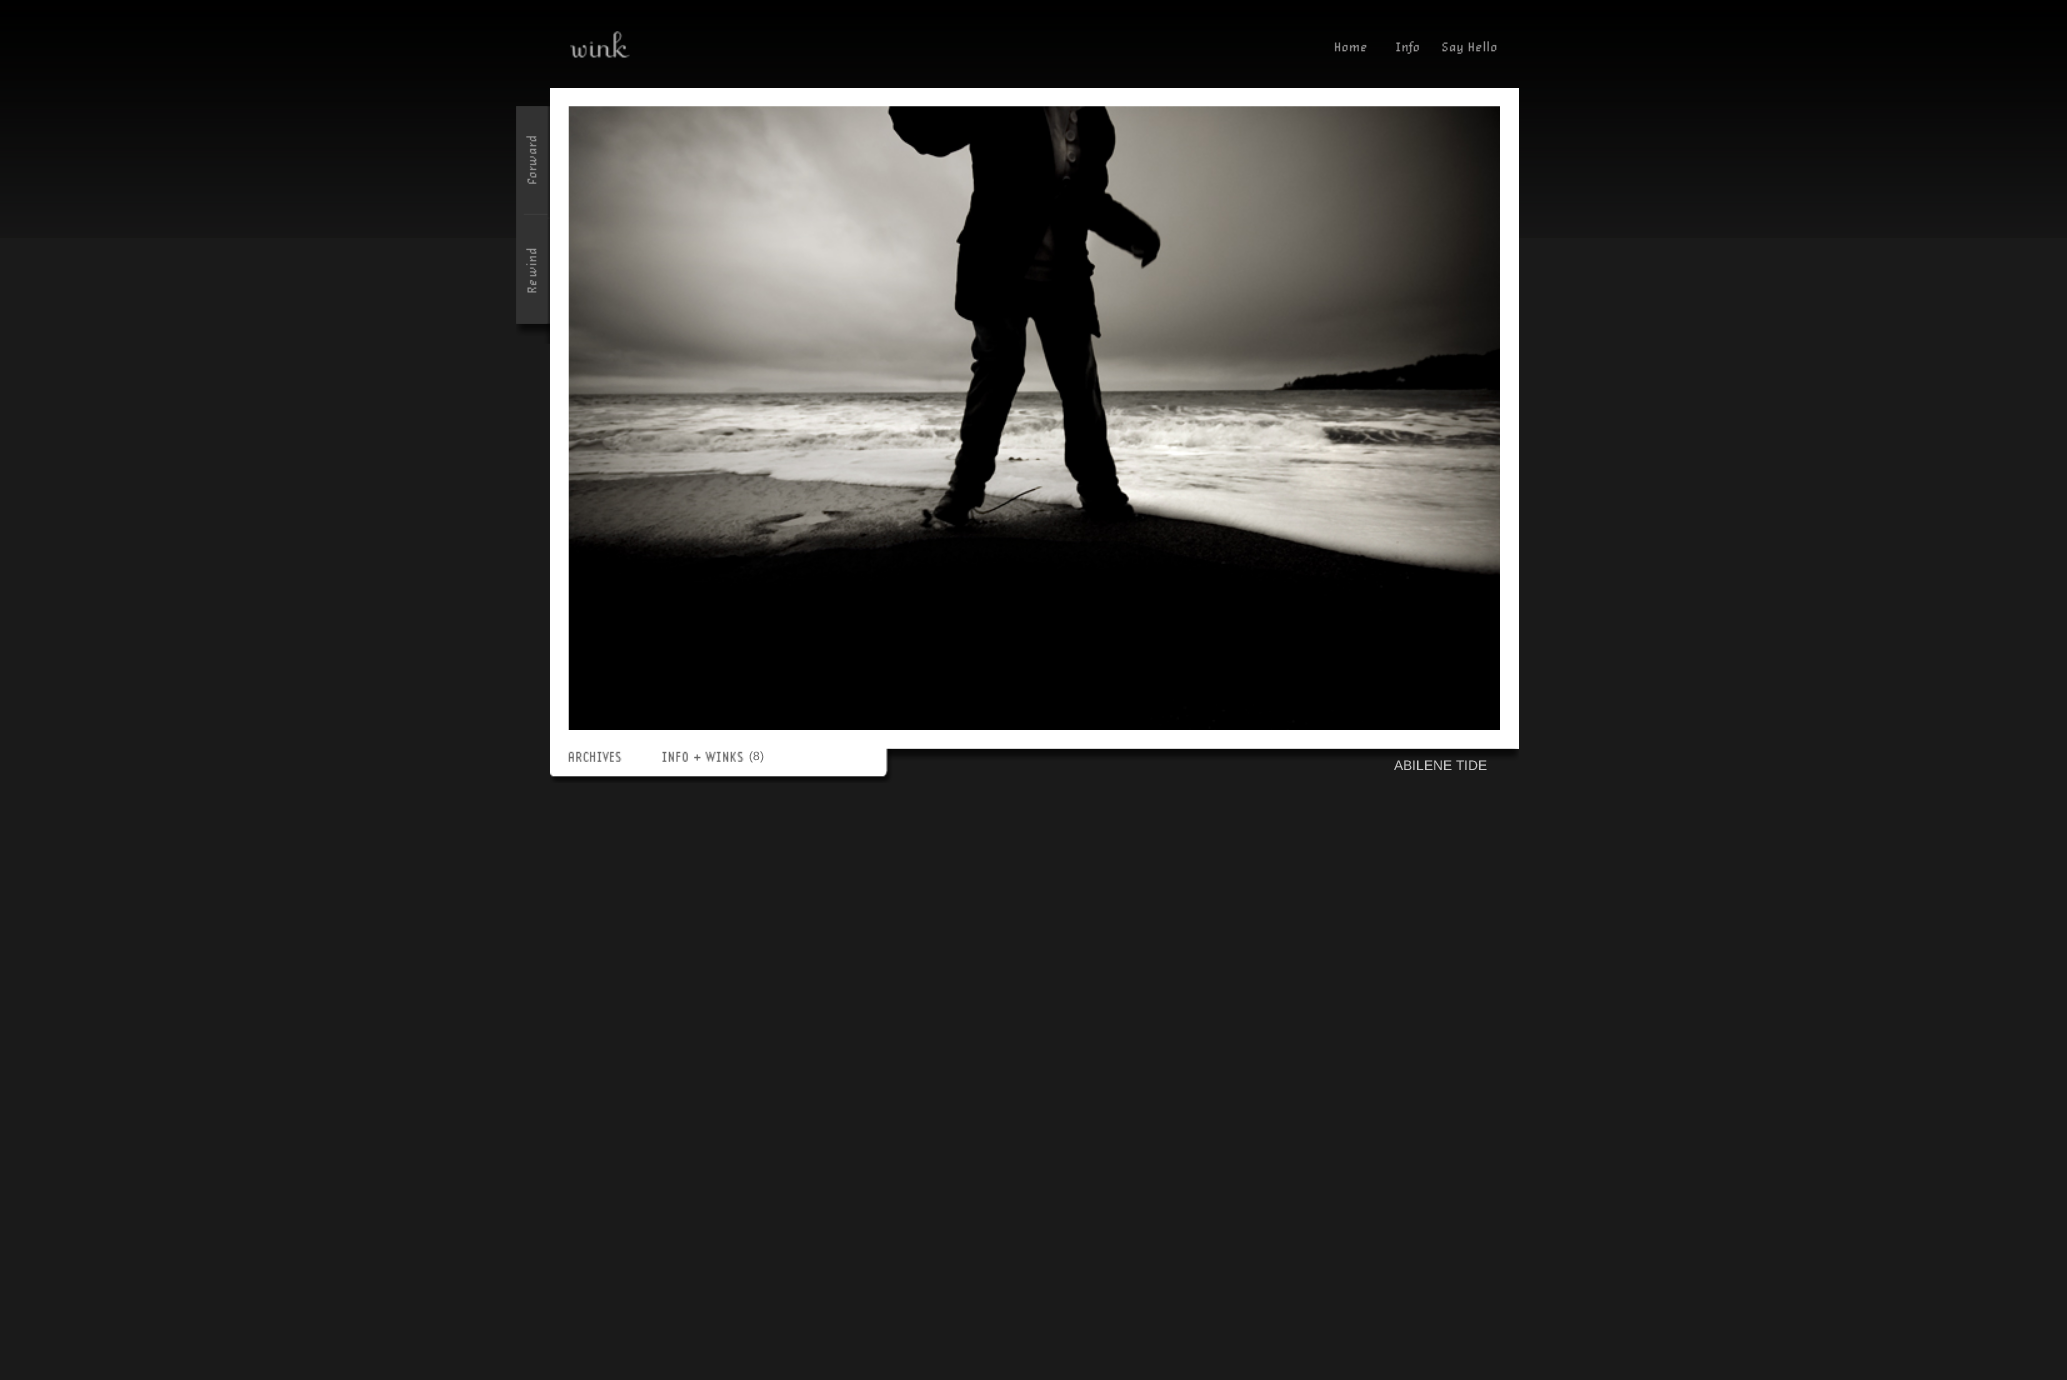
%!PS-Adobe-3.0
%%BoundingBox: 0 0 2067 1380
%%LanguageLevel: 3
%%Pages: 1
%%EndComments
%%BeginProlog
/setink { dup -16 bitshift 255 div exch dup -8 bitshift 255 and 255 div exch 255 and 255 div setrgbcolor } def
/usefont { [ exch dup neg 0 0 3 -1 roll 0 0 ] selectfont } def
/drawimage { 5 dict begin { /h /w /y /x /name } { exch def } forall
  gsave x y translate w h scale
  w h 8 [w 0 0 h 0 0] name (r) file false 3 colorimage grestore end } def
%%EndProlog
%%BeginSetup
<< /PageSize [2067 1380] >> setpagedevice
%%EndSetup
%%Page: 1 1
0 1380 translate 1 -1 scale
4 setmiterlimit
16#1A1A1A setink
0 0 2067 1380 rectfill
(img1.raw) 0 0 2067 238 drawimage
(img2.raw) 570 31 60 27 drawimage
(img3.raw) 1334 41 163 13 drawimage
(img4.raw) 516 106 34 238 drawimage
(img5.raw) 516 106 32 109 drawimage
(img6.raw) 516 215 32 109 drawimage
16#FFFFFF setink
550 88 969 661 rectfill
(img7.raw) 568 106 932 624 drawimage
(img8.raw) 550 748 969 35 drawimage
(img9.raw) 568 751 54 11 drawimage
(img10.raw) 662 751 82 11 drawimage
/LiberationSans-Regular 12 usefont
16#666666 setink
749 760 moveto (\(8\)) show
/LiberationSans-Regular 13.75 usefont
16#CCCCCC setink
1394 770 moveto (ABILENE TIDE) show
showpage
%%EOF
